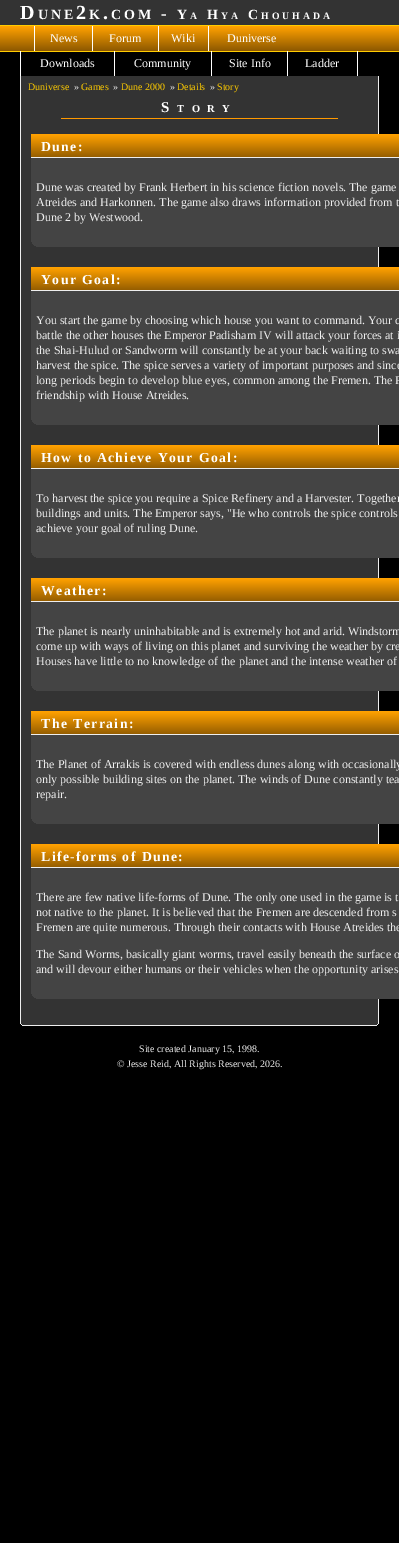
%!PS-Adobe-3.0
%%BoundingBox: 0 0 399 1543
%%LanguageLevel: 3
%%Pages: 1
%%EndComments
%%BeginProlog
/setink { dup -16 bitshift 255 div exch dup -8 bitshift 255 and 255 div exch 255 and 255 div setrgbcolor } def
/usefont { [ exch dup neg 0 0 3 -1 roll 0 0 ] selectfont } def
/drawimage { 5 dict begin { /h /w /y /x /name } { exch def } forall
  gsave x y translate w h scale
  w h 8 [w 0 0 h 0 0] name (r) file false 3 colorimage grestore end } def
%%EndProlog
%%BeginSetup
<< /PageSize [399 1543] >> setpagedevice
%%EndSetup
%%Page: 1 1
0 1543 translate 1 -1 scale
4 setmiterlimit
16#000000 setink
0 0 399 1543 rectfill
16#333333 setink
0 0 399 25 rectfill
/LiberationSerif-Bold 20 usefont
16#FFFFFF setink
20 19 moveto 3 0 (D) ashow
/LiberationSerif-Bold 14 usefont
38 19 moveto 3 0 (UNE) ashow
/LiberationSerif-Bold 20 usefont
76 19 moveto 3 0 (2) ashow
/LiberationSerif-Bold 14 usefont
89 19 moveto 3 0 (K) ashow
111 19 moveto 3 0 (COM) ashow
/LiberationSerif-Bold 17 usefont
161 19 moveto 3 0 (-) ashow
/LiberationSerif-Bold 14 usefont
177 19 moveto 3 0 (Y) ashow
/LiberationSerif-Bold 9.75 usefont
190 19 moveto 3 0 (A) ashow
/LiberationSerif-Bold 14 usefont
207 19 moveto 3 0 (H) ashow
/LiberationSerif-Bold 9.75 usefont
221 19 moveto 3 0 (YA) ashow
/LiberationSerif-Bold 14 usefont
248 19 moveto 3 0 (C) ashow
/LiberationSerif-Bold 9.75 usefont
261 19 moveto 3 0 (HOUHADA) ashow
/LiberationSerif-Bold 20 usefont
103 19 moveto 3 0 (.) ashow
(img1.raw) 0 26 399 25 drawimage
[
    [0 25 399 1 16#FFCC00]
    [0 51 399 1 16#FFCC00]
    [34 26 1 25 16#FFFFFF]
] { aload pop setink rectfill } forall
/LiberationSerif-Regular 12 usefont
50 42 moveto (News) show
92 26 1 25 rectfill
109 42 moveto (Forum) show
158 26 1 25 rectfill
171 42 moveto (Wiki) show
208 26 1 25 rectfill
227 42 moveto (Duniverse) show
20 51 1 25 rectfill
40 67 moveto (Downloads) show
114 51 1 25 rectfill
134 67 moveto (Community) show
211 51 1 25 rectfill
229 67 moveto (Site Info) show
357 51 1 25 rectfill
287 51 1 25 rectfill
305 67 moveto (Ladder) show
[
    [21 76 357 948 16#333333]
    [378 76 1 948 16#EEEEEE]
    [20 76 1 948 16#EEEEEE]
] { aload pop setink rectfill } forall
/LiberationSerif-Regular 10 usefont
16#FFCC00 setink
28 90 moveto (Duniverse) show
16#EEEEEE setink
74 90 moveto (») show
16#FFCC00 setink
81 90 moveto (Games) show
16#EEEEEE setink
113 90 moveto (») show
16#FFCC00 setink
121 90 moveto (Dune 2000) show
16#EEEEEE setink
170 90 moveto (») show
16#FFCC00 setink
177 90 moveto (Details) show
16#EEEEEE setink
210 90 moveto (») show
16#FFCC00 setink
217 90 moveto (Story) show
16#FF9900 setink
61 118 277 1 rectfill
/LiberationSerif-Bold 15 usefont
16#FFFFFF setink
161 112 moveto 7.5 0 (S) ashow
/LiberationSerif-Bold 10.5 usefont
177 112 moveto 7.5 0 (TORY) ashow
(img2.raw) 31 134 368 23 drawimage
16#EEEEEE setink
31 157 368 1 rectfill
/LiberationSerif-Bold 13.75 usefont
16#FFFFFF setink
41 151 moveto 1.4 0 (Dune:) ashow
16#444444 setink
31 158 368 89 rectfill
/LiberationSerif-Regular 12 usefont
16#EEEEEE setink
[
    [(Dune was created by Frank Herbert in his science fiction novels. The game) 36 191]
    [(Atreides and Harkonnen. The game also draws information provided from t) 36 206]
    [(Dune 2 by Westwood.) 36 221]
] { aload pop moveto show } forall
[
    [31 242 1 2 16#333333]
    [31 244 2 1 16#333333]
    [31 245 3 1 16#333333]
    [31 246 5 1 16#333333]
] { aload pop setink rectfill } forall
(img2.raw) 31 267 368 23 drawimage
16#EEEEEE setink
31 290 368 1 rectfill
/LiberationSerif-Bold 13.75 usefont
16#FFFFFF setink
41 284 moveto 1.4 0 (Your Goal:) ashow
16#444444 setink
31 291 368 134 rectfill
/LiberationSerif-Regular 12 usefont
16#EEEEEE setink
[
    [(You start the game by choosing which house you want to command. Your c) 36 324]
    [(battle the other houses the Emperor Padisham IV will attack your forces at i) 36 339]
    [(the Shai-Hulud or Sandworm will constantly be at your back waiting to swa) 36 354]
    [(harvest the spice. The spice serves a variety of important purposes and since) 36 369]
    [(long periods begin to develop blue eyes, common among the Fremen. The F) 36 384]
    [(friendship with House Atreides.) 36 399]
] { aload pop moveto show } forall
[
    [31 420 1 2 16#333333]
    [31 422 2 1 16#333333]
    [31 423 3 1 16#333333]
    [31 424 5 1 16#333333]
] { aload pop setink rectfill } forall
(img2.raw) 31 445 368 23 drawimage
16#EEEEEE setink
31 468 368 1 rectfill
/LiberationSerif-Bold 13.75 usefont
16#FFFFFF setink
41 462 moveto 1.4 0 (How to Achieve Your Goal:) ashow
16#444444 setink
31 469 368 89 rectfill
/LiberationSerif-Regular 12 usefont
16#EEEEEE setink
[
    [(To harvest the spice you require a Spice Refinery and a Harvester. Together) 36 502]
    [(buildings and units. The Emperor says, "He who controls the spice controls) 36 517]
    [(achieve your goal of ruling Dune.) 36 532]
] { aload pop moveto show } forall
[
    [31 553 1 2 16#333333]
    [31 555 2 1 16#333333]
    [31 556 3 1 16#333333]
    [31 557 5 1 16#333333]
] { aload pop setink rectfill } forall
(img2.raw) 31 578 368 23 drawimage
16#EEEEEE setink
31 601 368 1 rectfill
/LiberationSerif-Bold 13.75 usefont
16#FFFFFF setink
41 595 moveto 1.4 0 (Weather:) ashow
16#444444 setink
31 602 368 89 rectfill
/LiberationSerif-Regular 12 usefont
16#EEEEEE setink
[
    [(The planet is nearly uninhabitable and is extremely hot and arid. Windstorm) 36 635]
    [(come up with ways of living on this planet and surviving the weather by cre) 36 650]
    [(Houses have little to no knowledge of the planet and the intense weather of) 36 665]
] { aload pop moveto show } forall
[
    [31 686 1 2 16#333333]
    [31 688 2 1 16#333333]
    [31 689 3 1 16#333333]
    [31 690 5 1 16#333333]
] { aload pop setink rectfill } forall
(img2.raw) 31 711 368 23 drawimage
16#EEEEEE setink
31 734 368 1 rectfill
/LiberationSerif-Bold 13.75 usefont
16#FFFFFF setink
41 728 moveto 1.4 0 (The Terrain:) ashow
16#444444 setink
31 735 368 89 rectfill
/LiberationSerif-Regular 12 usefont
16#EEEEEE setink
[
    [(The Planet of Arrakis is covered with endless dunes along with occasionally) 36 768]
    [(only possible building sites on the planet. The winds of Dune constantly tea) 36 783]
    [(repair.) 36 798]
] { aload pop moveto show } forall
[
    [31 819 1 2 16#333333]
    [31 821 2 1 16#333333]
    [31 822 3 1 16#333333]
    [31 823 5 1 16#333333]
] { aload pop setink rectfill } forall
(img2.raw) 31 844 368 23 drawimage
16#EEEEEE setink
31 867 368 1 rectfill
/LiberationSerif-Bold 13.75 usefont
16#FFFFFF setink
41 861 moveto 1.4 0 (Life-forms of Dune:) ashow
16#444444 setink
31 868 368 131 rectfill
/LiberationSerif-Regular 12 usefont
16#EEEEEE setink
[
    [(There are few native life-forms of Dune. The only one used in the game is t) 36 901]
    [(not native to the planet. It is believed that the Fremen are descended from s) 36 916]
    [(Fremen are quite numerous. Through their contacts with House Atreides the) 36 931]
    [(The Sand Worms, basically giant worms, travel easily beneath the surface o) 36 958]
    [(and will devour either humans or their vehicles when the opportunity arises) 36 973]
] { aload pop moveto show } forall
[
    [31 994 1 2 16#333333]
    [31 996 2 1 16#333333]
    [31 997 3 1 16#333333]
    [31 998 5 1 16#333333]
    [22 1024 355 1 16#333333]
    [377 1024 1 1 16#EEEEEE]
    [21 1024 1 1 16#EEEEEE]
    [22 1025 355 1 16#EEEEEE]
] { aload pop setink rectfill } forall
/LiberationSerif-Regular 10 usefont
139 1052 moveto (Site created January 15, 1998.) show
117 1067 moveto (© Jesse Reid, All Rights Reserved, 2026.) show
showpage
%%EOF
